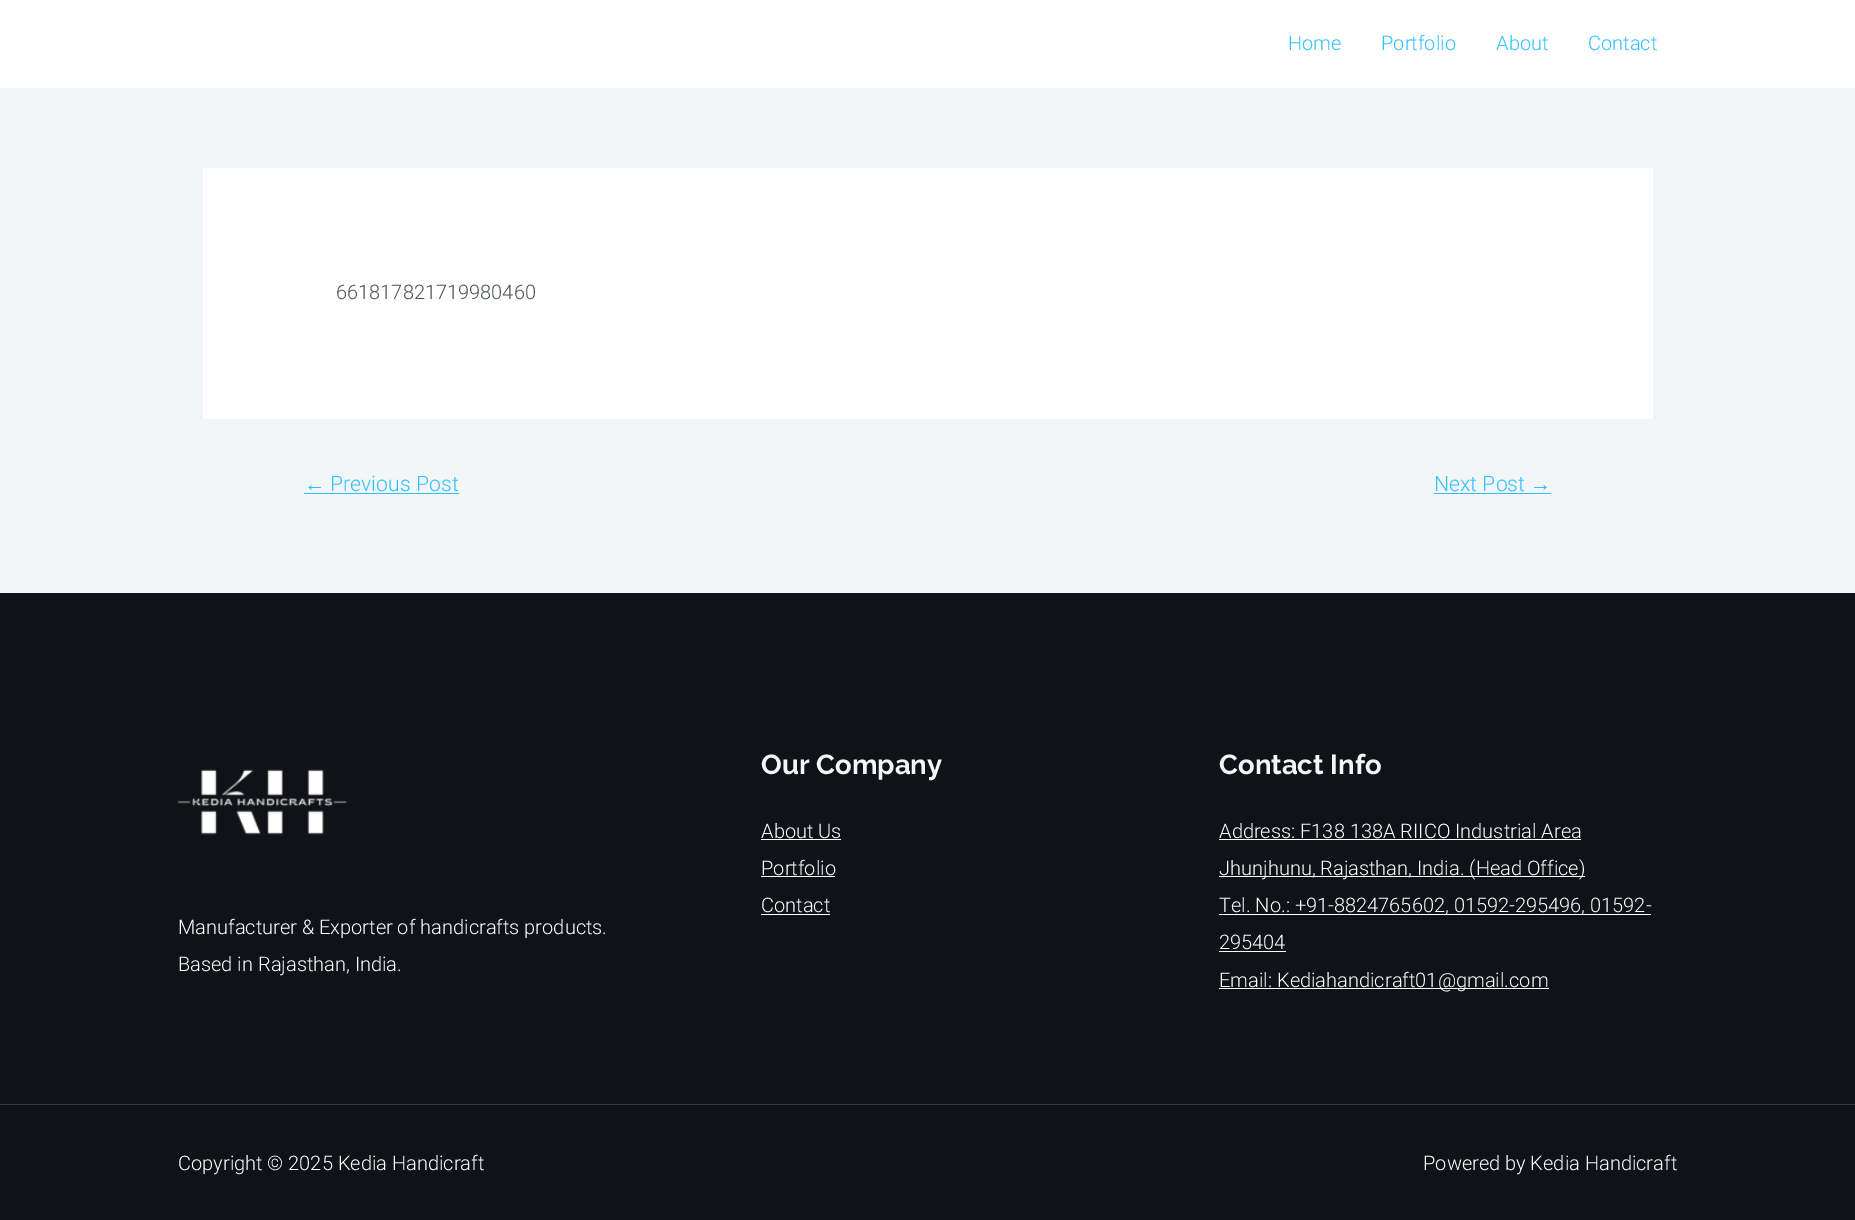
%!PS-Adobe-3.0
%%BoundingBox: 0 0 1855 1220
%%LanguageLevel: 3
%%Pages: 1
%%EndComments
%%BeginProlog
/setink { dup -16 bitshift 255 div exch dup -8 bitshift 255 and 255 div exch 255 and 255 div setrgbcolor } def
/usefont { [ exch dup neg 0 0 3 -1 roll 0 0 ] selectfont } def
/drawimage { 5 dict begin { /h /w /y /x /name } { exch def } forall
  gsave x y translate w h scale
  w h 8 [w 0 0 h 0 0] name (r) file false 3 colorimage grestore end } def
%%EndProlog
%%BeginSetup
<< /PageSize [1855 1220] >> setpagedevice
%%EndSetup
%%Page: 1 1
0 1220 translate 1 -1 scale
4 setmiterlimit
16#F3F6F6 setink
0 0 1855 1220 rectfill
16#FFFFFF setink
0 0 1855 88 rectfill
/Roboto-Light 20 usefont
16#2FC1FF setink
[
    [(Home) 1288 50]
    [(Portfolio) 1381 50]
    [(About) 1496 50]
    [(Contact) 1588 50]
] { aload pop moveto show } forall
16#FFFFFF setink
203 168 1450 251 rectfill
16#4C5253 setink
336 299 moveto (661817821719980460) show
/LiberationSans-Regular 21.25 usefont
16#2FC1FF setink
304 491 moveto (←) show
304 493 155 1 rectfill
/Roboto-Light 21.25 usefont
330 491 moveto (Previous Post) show
1434 491 moveto (Next Post) show
1434 493 117 1 rectfill
/LiberationSans-Regular 21.25 usefont
1530 491 moveto (→) show
16#101218 setink
0 593 1855 627 rectfill
/Raleway-Thin 27.5 usefont
16#F3F6F6 setink
761 774 moveto (Our Company) show
/Roboto-Light 20 usefont
16#FFFFFF setink
761 838 moveto (About Us) show
761 839 80 1 rectfill
761 875 moveto (Portfolio) show
761 876 74 1 rectfill
761 912 moveto (Contact) show
761 914 69 1 rectfill
/Raleway-Thin 27.5 usefont
16#F3F6F6 setink
1219 774 moveto (Contact Info) show
/Roboto-Light 20 usefont
16#FFFFFF setink
1219 838 moveto (Address: F138 138A RIICO Industrial Area) show
1219 839 362 1 rectfill
1219 876 366 1 rectfill
1219 875 moveto (Jhunjhunu, Rajasthan, India. \(Head Office\)) show
1219 914 432 1 rectfill
1219 912 moveto (Tel. No.: +91-8824765602, 01592-295496, 01592-) show
1219 949 moveto (295404) show
1219 951 67 1 rectfill
1219 988 330 1 rectfill
1219 987 moveto (Email: Kediahandicraft01@gmail.com) show
(img1.raw) 177 769 170 66 drawimage
178 934 moveto (Manufacturer & Exporter of handicrafts products.) show
178 971 moveto (Based in Rajasthan, India.) show
16#35373C setink
0 1104 1855 1 rectfill
16#FFFFFF setink
178 1170 moveto (Copyright © 2025 Kedia Handicraft) show
1423 1170 moveto (Powered by Kedia Handicraft) show
showpage
%%EOF
